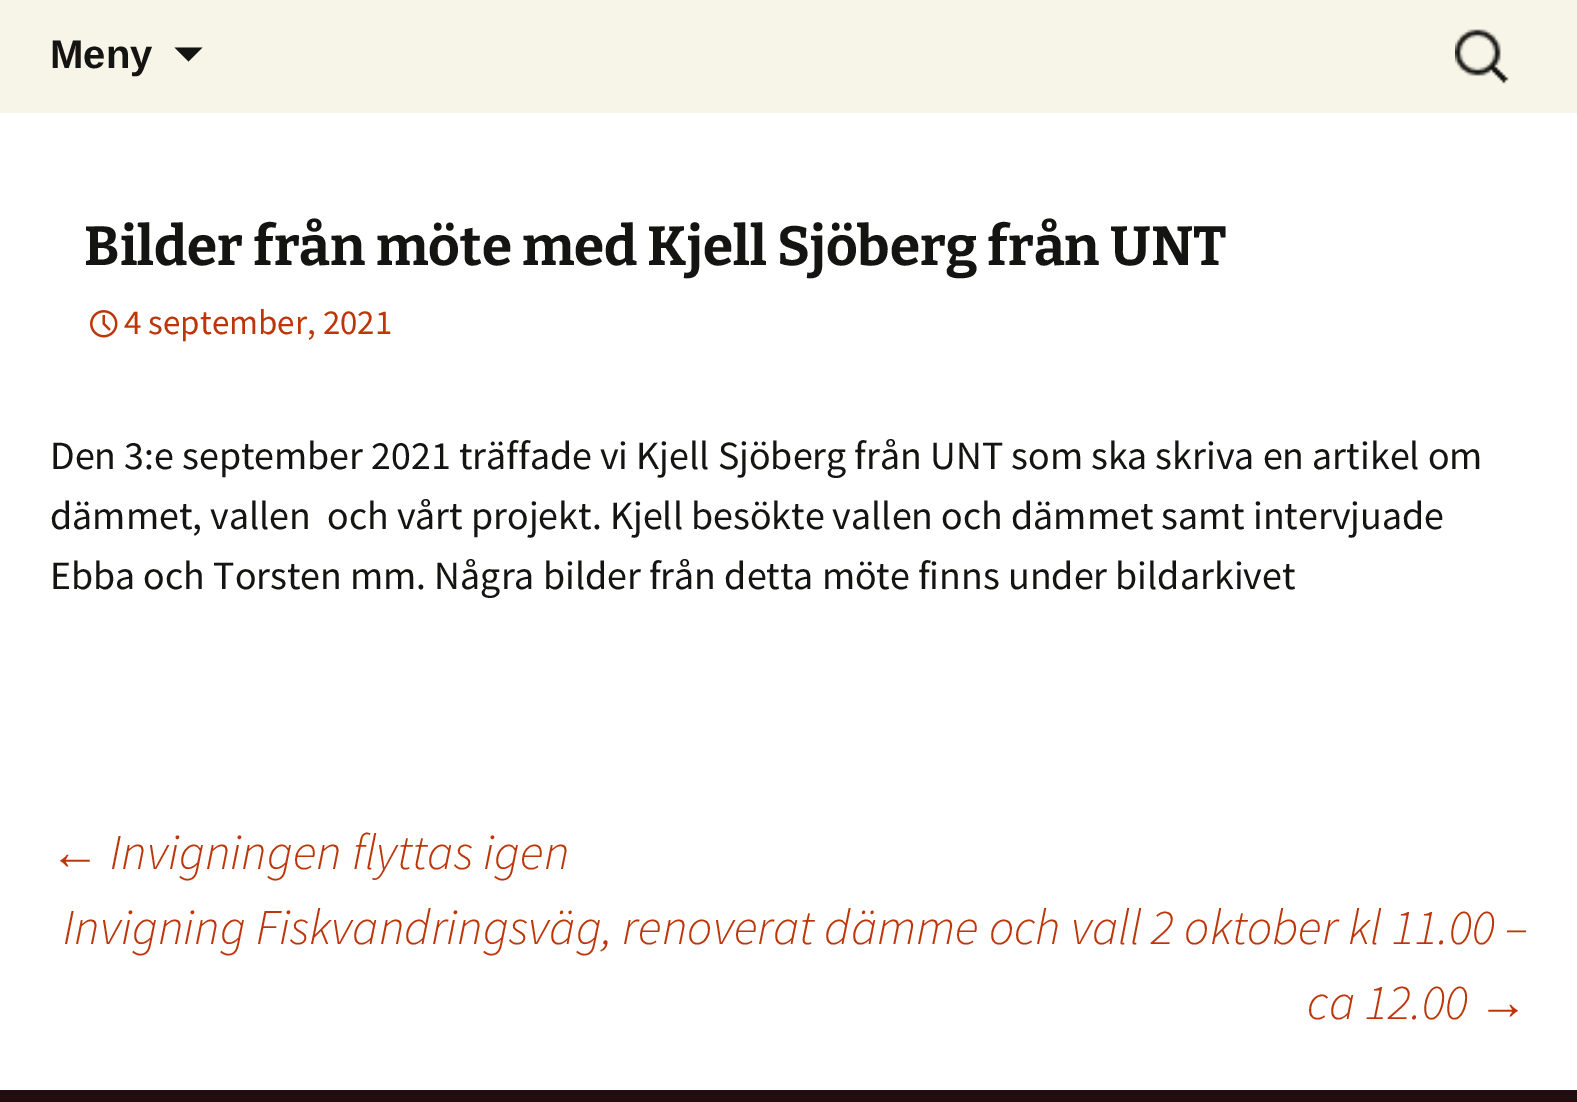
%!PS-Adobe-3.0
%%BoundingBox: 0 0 1577 1102
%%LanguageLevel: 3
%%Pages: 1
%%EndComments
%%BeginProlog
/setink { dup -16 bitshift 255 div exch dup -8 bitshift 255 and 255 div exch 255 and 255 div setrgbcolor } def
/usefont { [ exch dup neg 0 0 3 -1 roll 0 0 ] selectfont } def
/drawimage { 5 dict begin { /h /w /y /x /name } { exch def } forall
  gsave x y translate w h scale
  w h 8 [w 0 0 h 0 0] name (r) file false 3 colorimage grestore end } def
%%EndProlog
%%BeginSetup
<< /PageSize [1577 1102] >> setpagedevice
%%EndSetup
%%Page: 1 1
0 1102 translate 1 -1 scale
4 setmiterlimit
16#FFFFFF setink
0 0 1577 1102 rectfill
16#F7F5E7 setink
0 0 1577 113 rectfill
/LiberationSans-Bold 40 usefont
16#141412 setink
50 68 moveto (Meny) show
174.5 47.5 moveto 188.5 61.5 lineto 202.5 47.5 lineto closepath fill
(img1.raw) 1455 29 54 55 drawimage
/Bitter-Thin 55 usefont
84 265 moveto (Bilder från möte med Kjell Sjöberg från UNT) show
(img2.raw) 90 310 28 28 drawimage
/SourceSansPro-Regular 35 usefont
16#BC360A setink
124 334 moveto (4 september, 2021) show
/SourceSansPro-Regular 40 usefont
16#141412 setink
[
    [(Den 3:e september 2021 träffade vi Kjell Sjöberg från UNT som ska skriva en artikel om) 50 469]
    [(dämmet, vallen  och vårt projekt. Kjell besökte vallen och dämmet samt intervjuade) 50 529]
    [(Ebba och Torsten mm. Några bilder från detta möte finns under bildarkivet) 50 589]
] { aload pop moveto show } forall
/LiberationSans-Italic 50 usefont
16#BC360A setink
50 869 moveto (←) show
/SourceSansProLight-LightItalic 50 usefont
[
    [(Invigningen flyttas igen) 110 869]
    [(Invigning Fiskvandringsväg, renoverat dämme och vall 2 oktober kl 11.00 –) 63 944]
    [(ca 12.00) 1307 1019]
] { aload pop moveto show } forall
/LiberationSans-Italic 50 usefont
1478 1019 moveto (→) show
16#220E10 setink
0 1090 1577 12 rectfill
showpage
%%EOF
